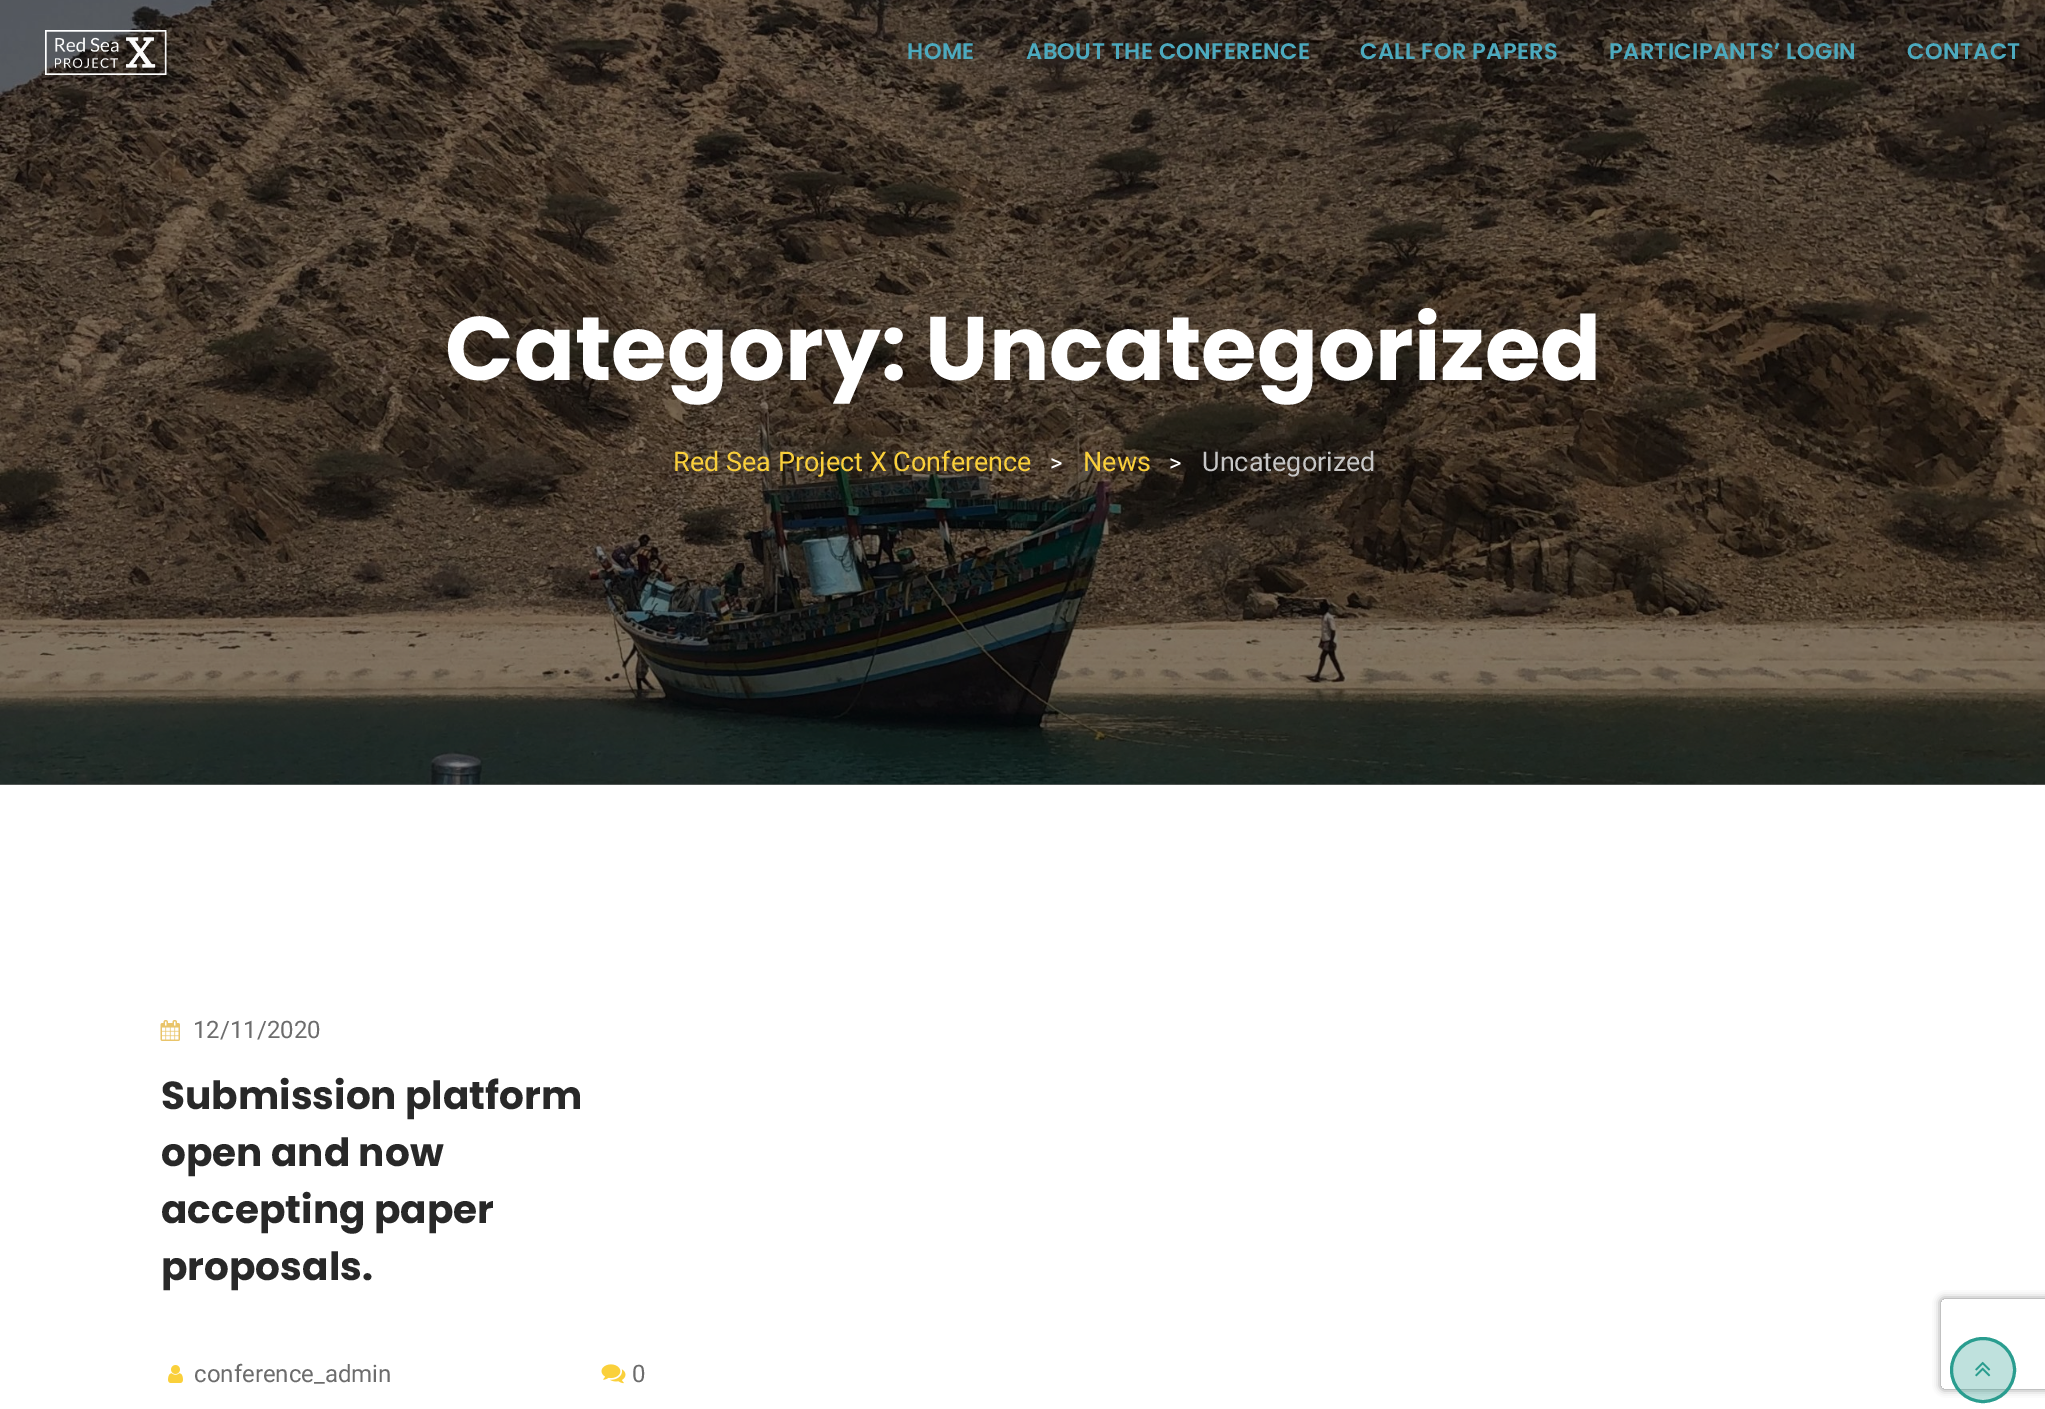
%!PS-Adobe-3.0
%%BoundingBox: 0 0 2045 1409
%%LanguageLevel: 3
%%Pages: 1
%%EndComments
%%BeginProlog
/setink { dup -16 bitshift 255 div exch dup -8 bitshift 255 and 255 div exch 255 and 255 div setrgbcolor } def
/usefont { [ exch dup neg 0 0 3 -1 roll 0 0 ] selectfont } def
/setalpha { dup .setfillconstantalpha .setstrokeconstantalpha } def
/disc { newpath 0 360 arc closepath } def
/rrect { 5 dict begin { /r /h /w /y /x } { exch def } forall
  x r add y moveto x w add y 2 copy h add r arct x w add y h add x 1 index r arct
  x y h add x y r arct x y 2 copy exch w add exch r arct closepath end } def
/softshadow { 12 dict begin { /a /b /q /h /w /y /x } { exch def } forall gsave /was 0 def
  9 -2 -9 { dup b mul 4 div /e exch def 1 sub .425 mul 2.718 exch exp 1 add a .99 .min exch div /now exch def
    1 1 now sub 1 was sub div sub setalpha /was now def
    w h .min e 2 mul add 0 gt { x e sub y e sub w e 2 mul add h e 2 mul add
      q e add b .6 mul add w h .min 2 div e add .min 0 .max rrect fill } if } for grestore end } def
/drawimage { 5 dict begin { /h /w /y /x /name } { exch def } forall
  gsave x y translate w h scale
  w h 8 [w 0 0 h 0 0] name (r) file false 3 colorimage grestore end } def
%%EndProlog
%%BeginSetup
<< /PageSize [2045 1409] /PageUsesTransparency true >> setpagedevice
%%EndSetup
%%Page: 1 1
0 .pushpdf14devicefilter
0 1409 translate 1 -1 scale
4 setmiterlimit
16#FFFFFF setink
0 0 2045 1409 rectfill
16#808080 setink
0 784 2045 1 rectfill
(img2.raw) 0 0 2045 785 drawimage
(img1.raw) 45 30 122 45 drawimage
/Poppins-SemiBold 22.5 usefont
16#4CAABF setink
907 59 moveto 0.4 0 (HOME) ashow
1026 59 moveto 0.4 0 (ABOUT THE CONFERENCE) ashow
1360 59 moveto 0.4 0 (CALL FOR PAPERS) ashow
1609 59 moveto 0.4 0 (PARTICIPANTS’ LOGIN) ashow
1907 59 moveto 0.4 0 (CONTACT) ashow
/Poppins-Bold 90 usefont
16#FFFFFF setink
445 380 moveto (Category: Uncategorized) show
/Roboto-Regular 27 usefont
16#FAD03B setink
673 471 moveto (Red Sea Project X Conference) show
/Roboto-Regular 24 usefont
16#FFFFFF setink
1050 471 moveto (>) show
/Roboto-Regular 27 usefont
16#FAD03B setink
1083 471 moveto (News) show
/Roboto-Regular 24 usefont
16#FFFFFF setink
1169 471 moveto (>) show
/Roboto-Regular 27 usefont
16#C6C6C6 setink
1202 471 moveto (Uncategorized) show
(img3.raw) 160 1020 20 21 drawimage
/Roboto-Regular 24 usefont
16#6C6C6C setink
193 1038 moveto (12/11/2020) show
/Poppins-Bold 39 usefont
16#282828 setink
[
    [(Submission platform) 161 1109]
    [(open and now) 161 1166]
    [(accepting paper) 161 1223]
    [(proposals.) 161 1280]
] { aload pop moveto show } forall
(img4.raw) 168 1365 15 18 drawimage
/Roboto-Regular 24 usefont
16#6C6C6C setink
194 1382 moveto (conference_admin) show
(img5.raw) 601 1364 25 20 drawimage
632 1382 moveto (0) show
gsave
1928 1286 moveto 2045 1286 lineto 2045 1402 lineto 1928 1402 lineto closepath 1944 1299 moveto 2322 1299 lineto 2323.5 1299 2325 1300.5 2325 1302 curveto 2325 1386 lineto 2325 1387.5 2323.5 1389 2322 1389 curveto 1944 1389 lineto 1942.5 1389 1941 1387.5 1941 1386 curveto 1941 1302 lineto 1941 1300.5 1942.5 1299 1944 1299 curveto closepath eoclip newpath
16#808080 setink
1941 1299 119 90 3 4 1 softshadow
grestore
0.3 setalpha
16#2A9D8F setink
1983 1370 31.5 disc fill
1 setalpha
3 setlinewidth
1983 1370 31.5 disc stroke
(img6.raw) 1975 1361 16 16 drawimage
.poppdf14devicefilter showpage
%%EOF
